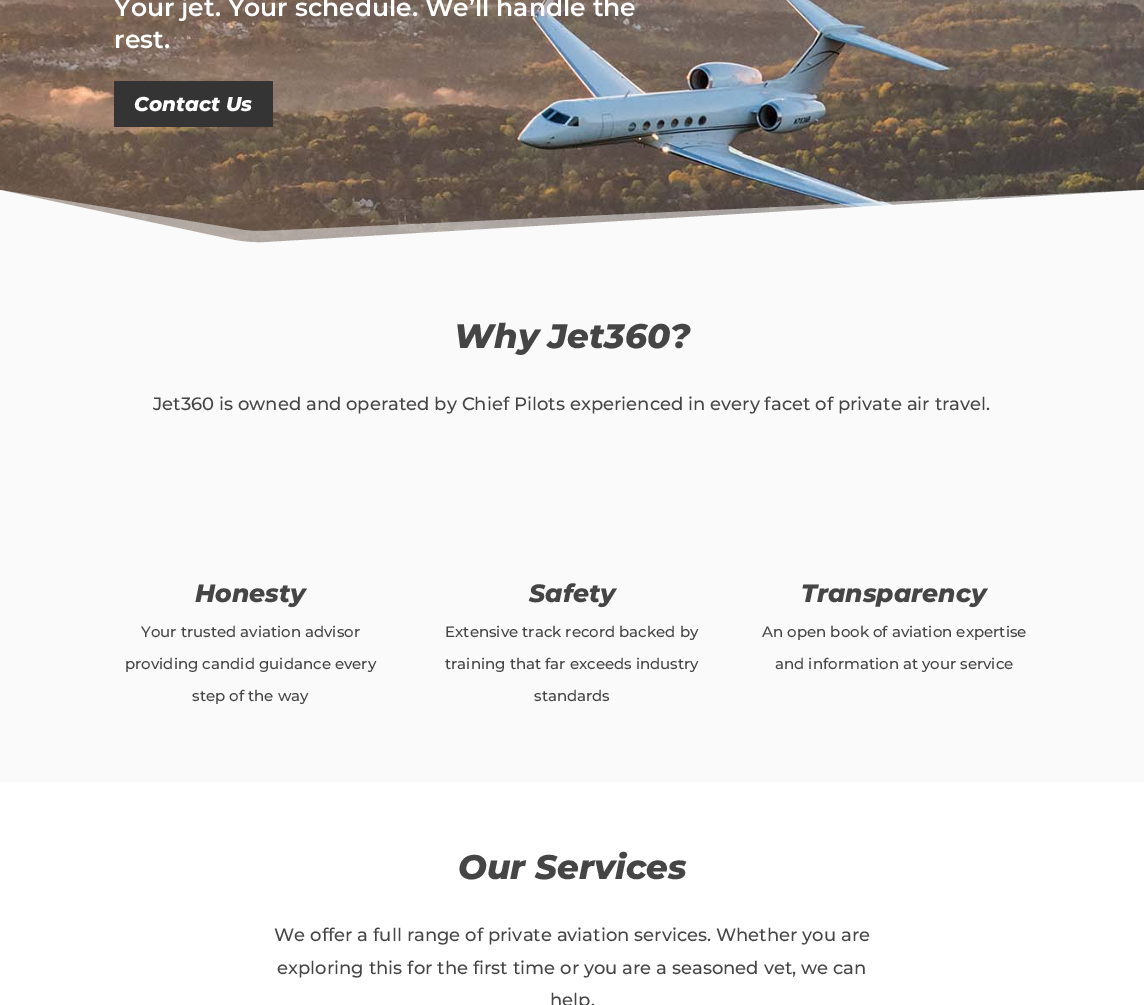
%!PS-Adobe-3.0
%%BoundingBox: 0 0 1144 1005
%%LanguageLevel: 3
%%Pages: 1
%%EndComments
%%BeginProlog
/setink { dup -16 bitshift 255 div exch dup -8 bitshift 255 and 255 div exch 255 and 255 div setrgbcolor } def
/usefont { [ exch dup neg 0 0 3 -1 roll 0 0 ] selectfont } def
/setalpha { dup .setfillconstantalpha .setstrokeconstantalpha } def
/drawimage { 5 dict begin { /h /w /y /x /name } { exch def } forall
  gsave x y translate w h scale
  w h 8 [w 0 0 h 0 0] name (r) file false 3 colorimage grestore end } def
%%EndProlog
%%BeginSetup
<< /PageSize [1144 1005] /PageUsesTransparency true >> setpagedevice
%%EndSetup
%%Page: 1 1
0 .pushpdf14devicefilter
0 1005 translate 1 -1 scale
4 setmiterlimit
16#FFFFFF setink
0 0 1144 1005 rectfill
(img1.raw) 0 0 1144 243 drawimage
/Montserrat-SemiBold 25 usefont
114 16 moveto (Your jet. Your schedule. We’ll handle the) show
114 48 moveto (rest.) show
16#343434 setink
114 81 159 46 rectfill
/Montserrat-ExtraBoldItalic 20 usefont
16#FFFFFF setink
134 111 moveto (Contact Us) show
0.5 setalpha
16#FAFAFA setink
0 190 moveto 238 229 lineto 247 231 256 231 265 231 curveto 1144 190 lineto 1144 250 lineto 0 250 lineto closepath fill
1 setalpha
0 190 moveto 234 240 lineto 245 242 257 243 269 242 curveto 1144 190 lineto 1144 250 lineto 0 250 lineto closepath fill
0 250 1144 532 rectfill
/Montserrat-ExtraBoldItalic 34 usefont
16#454545 setink
454 348 moveto (Why Jet360?) show
/Montserrat-Medium 18 usefont
153 410 moveto (Jet360 is owned and operated by Chief Pilots experienced in every facet of private air travel.) show
/Montserrat-ExtraBoldItalic 25 usefont
195 602 moveto (Honesty) show
/Montserrat-Medium 15 usefont
[
    [(Your trusted aviation advisor) 141 637]
    [(providing candid guidance every) 125 669]
    [(step of the way) 192 701]
] { aload pop moveto show } forall
/Montserrat-ExtraBoldItalic 25 usefont
529 602 moveto (Safety) show
/Montserrat-Medium 15 usefont
[
    [(Extensive track record backed by) 445 637]
    [(training that far exceeds industry) 445 669]
    [(standards) 534 701]
] { aload pop moveto show } forall
/Montserrat-ExtraBoldItalic 25 usefont
801 602 moveto (Transparency) show
/Montserrat-Medium 15 usefont
762 637 moveto (An open book of aviation expertise) show
775 669 moveto (and information at your service) show
/Montserrat-ExtraBoldItalic 34 usefont
458 879 moveto (Our Services) show
/Montserrat-Medium 18 usefont
[
    [(We offer a full range of private aviation services. Whether you are) 274 941]
    [(exploring this for the first time or you are a seasoned vet, we can) 277 974]
    [(help.) 550 1006]
] { aload pop moveto show } forall
.poppdf14devicefilter showpage
%%EOF
